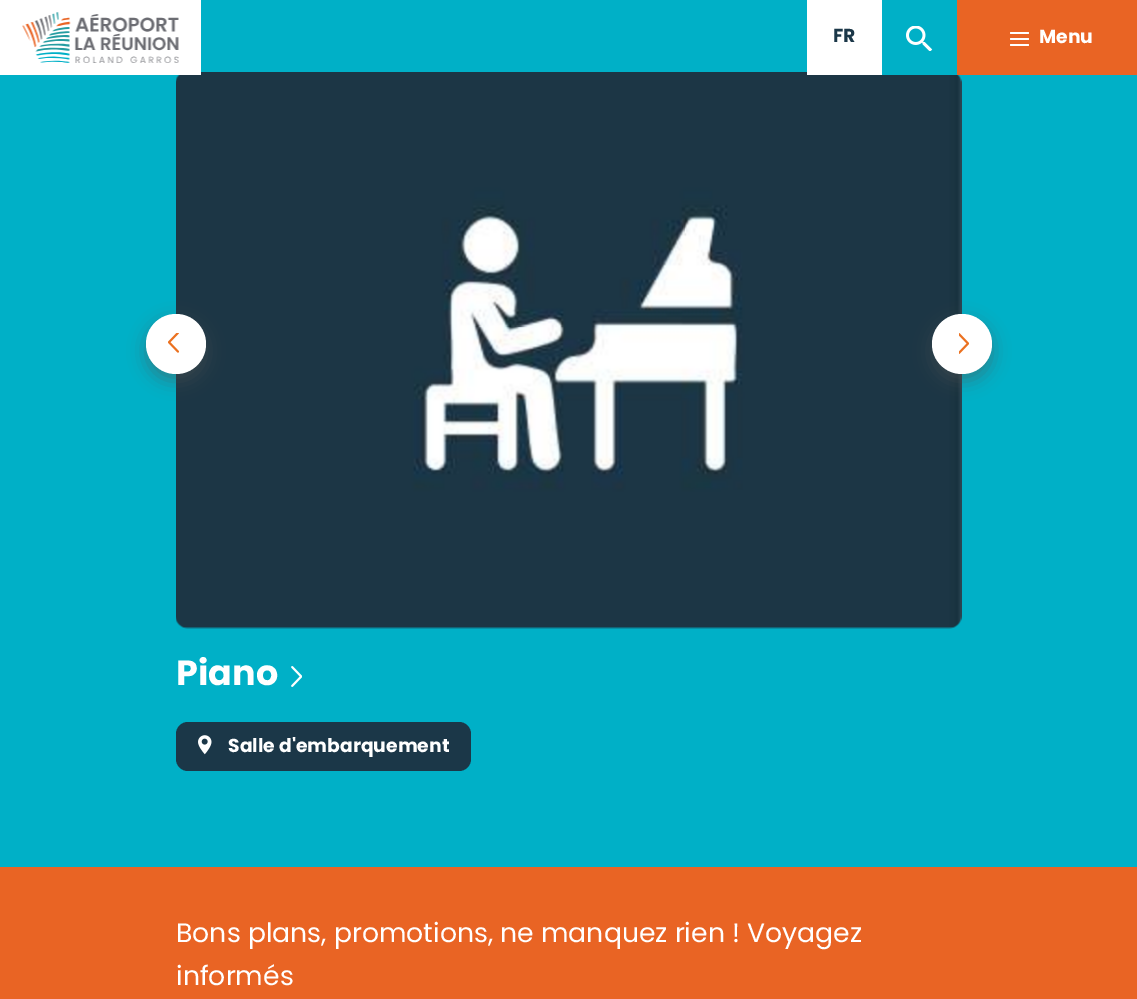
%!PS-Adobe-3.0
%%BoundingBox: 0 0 1137 999
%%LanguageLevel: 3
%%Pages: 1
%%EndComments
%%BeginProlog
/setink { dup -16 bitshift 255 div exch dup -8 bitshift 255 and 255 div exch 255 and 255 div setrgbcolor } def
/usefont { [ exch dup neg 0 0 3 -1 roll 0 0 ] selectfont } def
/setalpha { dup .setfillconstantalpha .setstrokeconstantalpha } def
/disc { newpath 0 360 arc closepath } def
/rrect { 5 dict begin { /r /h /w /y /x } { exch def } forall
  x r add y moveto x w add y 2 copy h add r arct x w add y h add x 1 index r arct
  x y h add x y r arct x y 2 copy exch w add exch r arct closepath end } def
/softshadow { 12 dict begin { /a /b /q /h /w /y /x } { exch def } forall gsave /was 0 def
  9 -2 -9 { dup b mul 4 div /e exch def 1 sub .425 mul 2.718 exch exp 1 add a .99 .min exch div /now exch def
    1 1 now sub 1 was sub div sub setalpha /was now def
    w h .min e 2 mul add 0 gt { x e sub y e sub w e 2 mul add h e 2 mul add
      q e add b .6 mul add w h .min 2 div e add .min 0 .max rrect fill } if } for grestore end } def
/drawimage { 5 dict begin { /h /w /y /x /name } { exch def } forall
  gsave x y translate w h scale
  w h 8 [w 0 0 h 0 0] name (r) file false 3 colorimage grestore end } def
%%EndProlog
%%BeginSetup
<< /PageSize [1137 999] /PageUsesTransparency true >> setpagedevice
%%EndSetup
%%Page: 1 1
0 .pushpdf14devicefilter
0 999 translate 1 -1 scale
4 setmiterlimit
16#E96424 setink
0 0 1137 999 rectfill
16#00B0C7 setink
0 0 1137 867 rectfill
(img5.raw) 176 72 786 557 drawimage
16#FFFFFF setink
0 0 201 75 rectfill
(img1.raw) 22 12 157 51 drawimage
807 0 75 75 rectfill
/Poppins-Bold 18.75 usefont
16#1B3748 setink
833 42 moveto (FR) show
16#00B0C7 setink
882 72 75 3 rectfill
(img2.raw) 906 26 27 25 drawimage
16#E96424 setink
957 0 180 75 rectfill
16#FFFFFF setink
1010 32 19 2 1 rrect fill
1010 38 19 2 1 rrect fill
1010 44 19 2 1 rrect fill
1039 43 moveto (Menu) show
16#525252 setink
146 321 60 60 30 9 0.5 softshadow
16#FFFFFF setink
176 344 30 disc fill
(img3.raw) 168 333 11 20 drawimage
16#525252 setink
932 321 60 60 30 9 0.5 softshadow
16#FFFFFF setink
962 344 30 disc fill
(img4.raw) 959 333 10 21 drawimage
/Poppins-Bold 35 usefont
176 685 moveto (Piano) show
(img6.raw) 291 666 11 21 drawimage
16#1B3748 setink
176 722 295 49 12 rrect fill
(img7.raw) 198 735 14 20 drawimage
/Poppins-Bold 18.75 usefont
16#FFFFFF setink
228 752 moveto (Salle d'embarquement) show
/Poppins-Regular 26.7 usefont
176 942 moveto (Bons plans, promotions, ne manquez rien ! Voyagez) show
176 985 moveto (informés) show
.poppdf14devicefilter showpage
%%EOF
